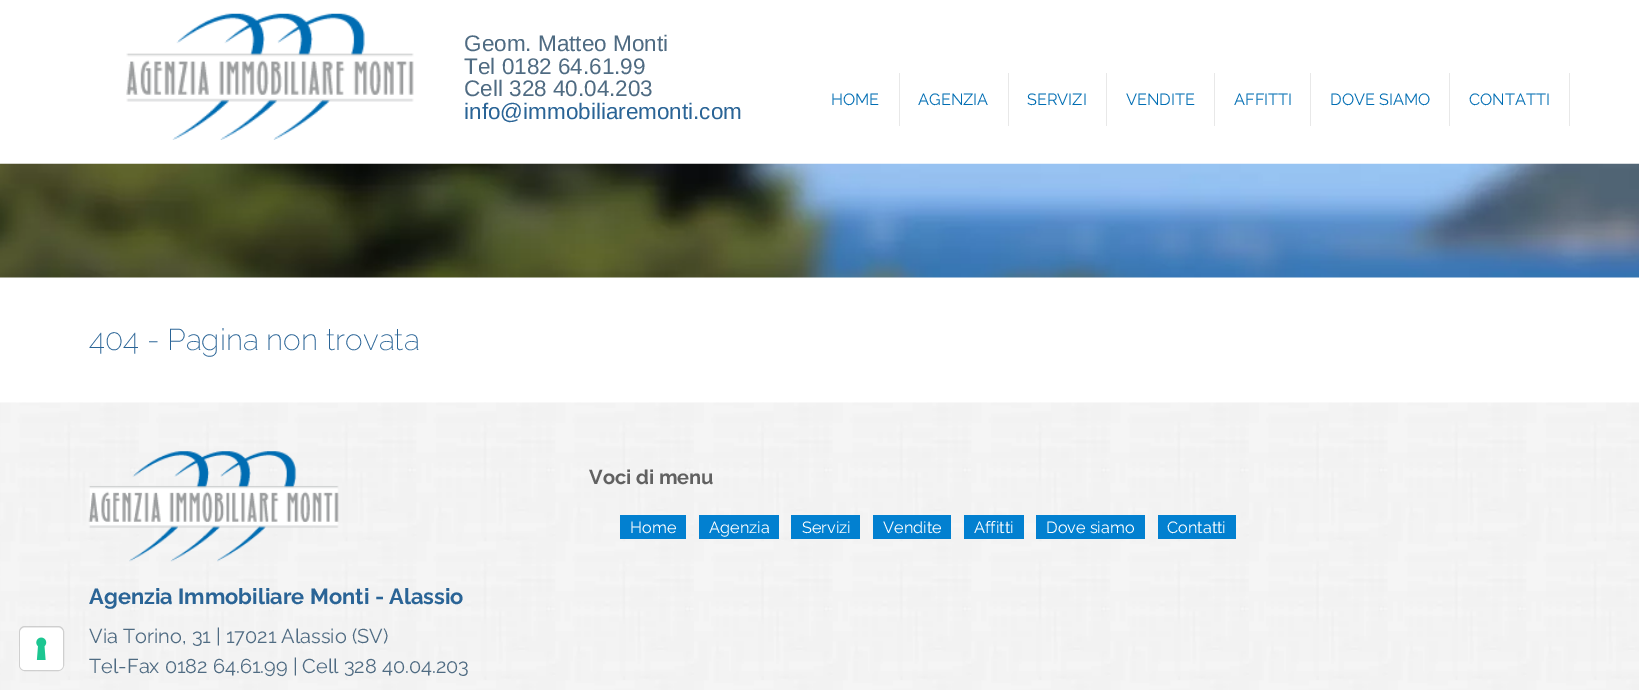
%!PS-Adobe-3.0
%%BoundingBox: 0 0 1639 690
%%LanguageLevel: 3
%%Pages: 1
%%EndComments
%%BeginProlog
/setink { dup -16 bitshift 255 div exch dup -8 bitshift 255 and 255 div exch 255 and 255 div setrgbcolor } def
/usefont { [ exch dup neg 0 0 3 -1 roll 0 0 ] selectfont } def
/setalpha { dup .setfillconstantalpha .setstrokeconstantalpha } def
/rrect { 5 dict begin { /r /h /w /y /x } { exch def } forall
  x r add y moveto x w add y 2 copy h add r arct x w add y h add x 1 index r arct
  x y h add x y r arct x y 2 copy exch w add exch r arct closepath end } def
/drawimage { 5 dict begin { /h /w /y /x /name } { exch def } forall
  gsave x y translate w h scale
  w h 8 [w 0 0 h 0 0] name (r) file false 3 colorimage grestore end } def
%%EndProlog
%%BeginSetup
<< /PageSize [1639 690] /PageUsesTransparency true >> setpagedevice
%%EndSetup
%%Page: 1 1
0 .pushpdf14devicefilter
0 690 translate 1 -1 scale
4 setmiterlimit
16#FFFFFF setink
0 0 1639 690 rectfill
(img1.raw) 126 13 288 127 drawimage
/LiberationSans-Regular 22.5 usefont
16#4F6B82 setink
[
    [(Geom. Matteo Monti) 464 51]
    [(Tel 0182 64.61.99) 464 74]
    [(Cell 328 40.04.203) 464 96]
] { aload pop moveto show } forall
16#2A6496 setink
464 119 moveto (info@immobiliaremonti.com) show
16#E8E8E8 setink
899 73 1 53 rectfill
/Raleway-Regular 16.25 usefont
16#006DB3 setink
831 105 moveto (HOME) show
16#E8E8E8 setink
1008 73 1 53 rectfill
16#006DB3 setink
918 105 moveto (AGENZIA) show
16#E8E8E8 setink
1106 73 1 53 rectfill
16#006DB3 setink
1027 105 moveto (SERVIZI) show
16#E8E8E8 setink
1214 73 1 53 rectfill
16#006DB3 setink
1126 105 moveto (VENDITE) show
16#E8E8E8 setink
1310 73 1 53 rectfill
16#006DB3 setink
1234 105 moveto (AFFITTI) show
16#E8E8E8 setink
1449 73 1 53 rectfill
16#006DB3 setink
1330 105 moveto (DOVE SIAMO) show
16#E8E8E8 setink
1569 73 1 53 rectfill
16#006DB3 setink
1469 105 moveto (CONTATTI) show
(img2.raw) 0 163 1639 115 drawimage
/Raleway-ExtraLight 30 usefont
16#2A6496 setink
89 350 moveto (404 - Pagina non trovata) show
(img4.raw) 0 402 1639 288 drawimage
0.15 setalpha
16#000000 setink
19.5 626.5 44 44 5.5 rrect stroke
1 setalpha
16#FFFFFF setink
20 628 43 42 5 rrect fill
(img3.raw) 36 637 11 23 drawimage
/Raleway-Bold 20 usefont
16#616161 setink
589 484 moveto (Voci di menu) show
16#0280D0 setink
620 515 66 24 rectfill
/Raleway-Regular 16.25 usefont
16#FFFFFF setink
630 533 moveto (Home) show
16#0280D0 setink
699 515 80 24 rectfill
16#FFFFFF setink
709 533 moveto (Agenzia) show
16#0280D0 setink
791 515 69 24 rectfill
16#FFFFFF setink
802 533 moveto (Servizi) show
16#0280D0 setink
873 515 78 24 rectfill
16#FFFFFF setink
883 533 moveto (Vendite) show
16#0280D0 setink
964 515 60 24 rectfill
16#FFFFFF setink
974 533 moveto (Affitti) show
16#0280D0 setink
1036 515 109 24 rectfill
16#FFFFFF setink
1046 533 moveto (Dove siamo) show
16#0280D0 setink
1158 515 78 24 rectfill
16#FFFFFF setink
1167 533 moveto (Contatti) show
(img5.raw) 88 451 251 111 drawimage
/Raleway-Bold 21.9 usefont
16#2A6496 setink
89 604 moveto (Agenzia Immobiliare Monti - Alassio) show
/Raleway-Regular 20 usefont
16#4F6B82 setink
89 643 moveto (Via Torino, 31 | 17021 Alassio \(SV\)) show
89 673 moveto (Tel-Fax 0182 64.61.99 | Cell 328 40.04.203) show
.poppdf14devicefilter showpage
%%EOF
